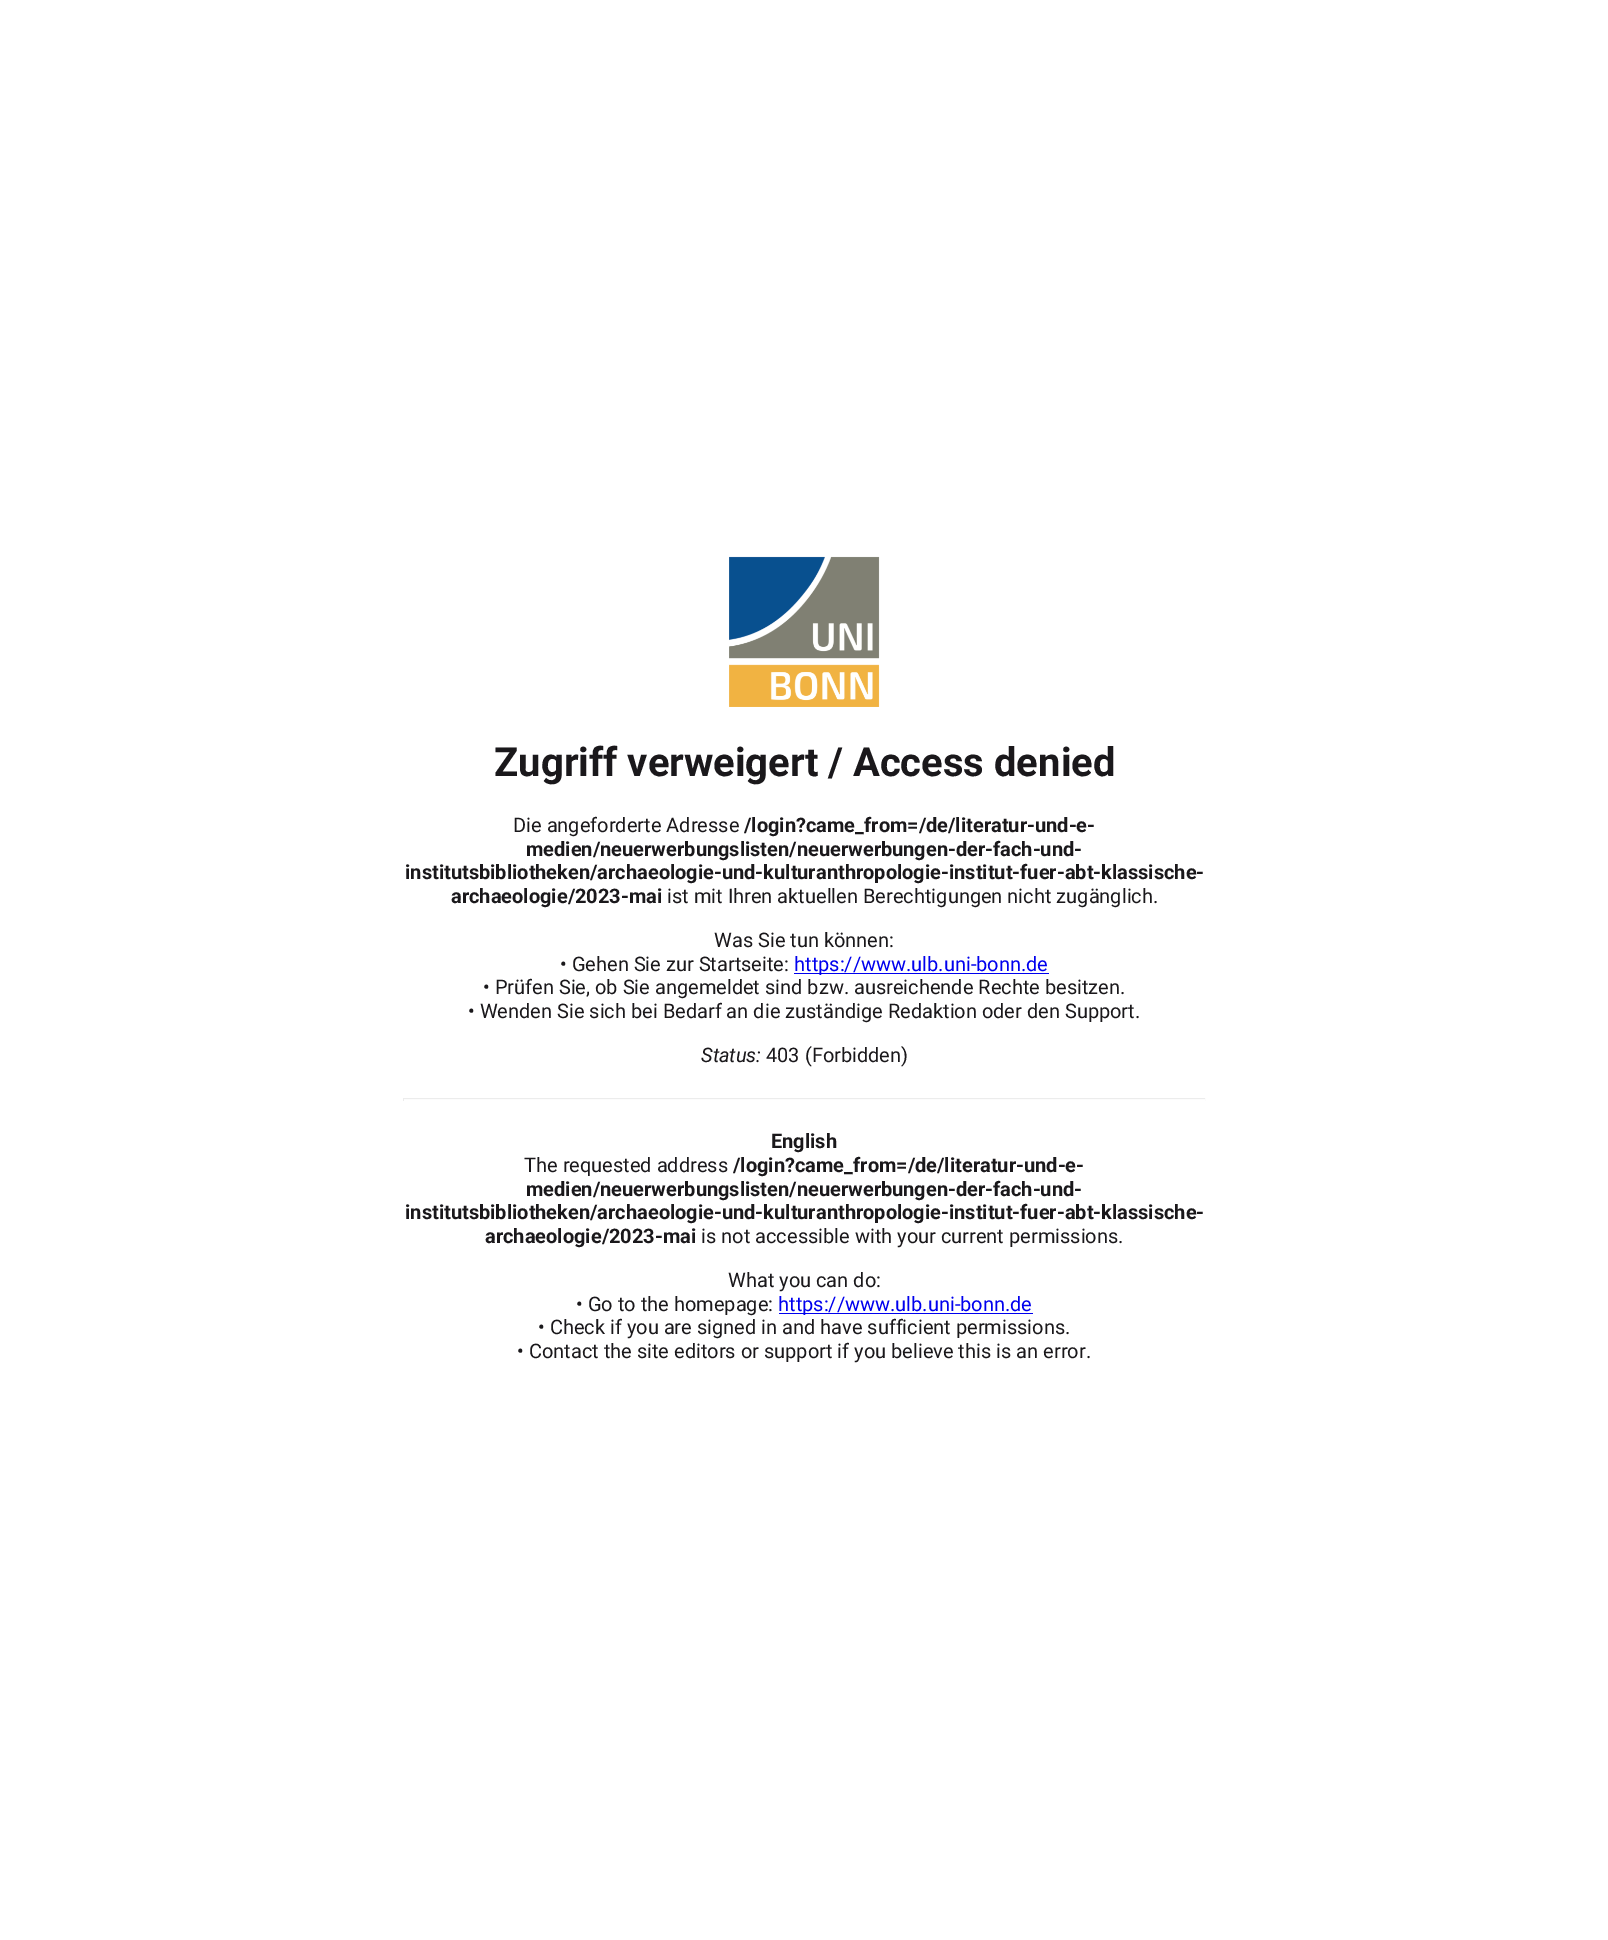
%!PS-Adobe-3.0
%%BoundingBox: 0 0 1608 1940
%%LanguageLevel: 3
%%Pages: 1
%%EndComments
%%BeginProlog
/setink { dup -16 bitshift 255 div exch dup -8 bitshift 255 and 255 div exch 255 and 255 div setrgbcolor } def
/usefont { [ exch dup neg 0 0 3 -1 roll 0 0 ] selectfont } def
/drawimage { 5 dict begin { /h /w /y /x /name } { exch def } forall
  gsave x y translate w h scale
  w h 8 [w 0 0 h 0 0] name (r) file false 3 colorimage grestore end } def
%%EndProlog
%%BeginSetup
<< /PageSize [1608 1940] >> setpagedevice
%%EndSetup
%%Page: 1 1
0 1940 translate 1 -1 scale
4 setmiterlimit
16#FFFFFF setink
0 0 1608 1940 rectfill
(img1.raw) 729 556 151 151 drawimage
/Roboto-Bold 40 usefont
16#1A181B setink
494 776 moveto (Zugriff verweigert / Access denied) show
/Roboto-Regular 20 usefont
513 832 moveto (Die angeforderte Adresse) show
/Roboto-Bold 20 usefont
[
    [(/login?came_from=/de/literatur-und-e-) 744 832]
    [(medien/neuerwerbungslisten/neuerwerbungen-der-fach-und-) 526 856]
    [(institutsbibliotheken/archaeologie-und-kulturanthropologie-institut-fuer-abt-klassische-) 405 879]
    [(archaeologie/2023-mai) 451 903]
] { aload pop moveto show } forall
/Roboto-Regular 20 usefont
[
    [(ist mit Ihren aktuellen Berechtigungen nicht zugänglich.) 667 903]
    [(Was Sie tun können:) 714 947]
    [(• Gehen Sie zur Startseite:) 560 971]
] { aload pop moveto show } forall
16#0000EE setink
794 973 255 1 rectfill
794 971 moveto (https://www.ulb.uni-bonn.de) show
16#1A181B setink
483 994 moveto (• Prüfen Sie, ob Sie angemeldet sind bzw. ausreichende Rechte besitzen.) show
468 1018 moveto (• Wenden Sie sich bei Bedarf an die zuständige Redaktion oder den Support.) show
/Roboto-Italic 20 usefont
701 1062 moveto (Status:) show
/Roboto-Regular 20 usefont
766 1062 moveto (403 \(Forbidden\)) show
[
    [403 1098 803 1 16#ECECEC]
    [1205 1098 1 3 16#FCFCFC]
    [403 1099 803 1 16#FCFCFC]
    [403 1098 1 3 16#ECECEC]
] { aload pop setink rectfill } forall
/Roboto-Bold 20 usefont
16#1A181B setink
771 1148 moveto (English) show
/Roboto-Regular 20 usefont
524 1172 moveto (The requested address) show
/Roboto-Bold 20 usefont
[
    [(/login?came_from=/de/literatur-und-e-) 733 1172]
    [(medien/neuerwerbungslisten/neuerwerbungen-der-fach-und-) 526 1196]
    [(institutsbibliotheken/archaeologie-und-kulturanthropologie-institut-fuer-abt-klassische-) 405 1219]
    [(archaeologie/2023-mai) 485 1243]
] { aload pop moveto show } forall
/Roboto-Regular 20 usefont
[
    [(is not accessible with your current permissions.) 701 1243]
    [(What you can do:) 728 1287]
    [(• Go to the homepage:) 576 1311]
] { aload pop moveto show } forall
16#0000EE setink
779 1313 254 1 rectfill
778 1311 moveto (https://www.ulb.uni-bonn.de) show
16#1A181B setink
538 1334 moveto (• Check if you are signed in and have sufficient permissions.) show
517 1358 moveto (• Contact the site editors or support if you believe this is an error.) show
showpage
%%EOF
